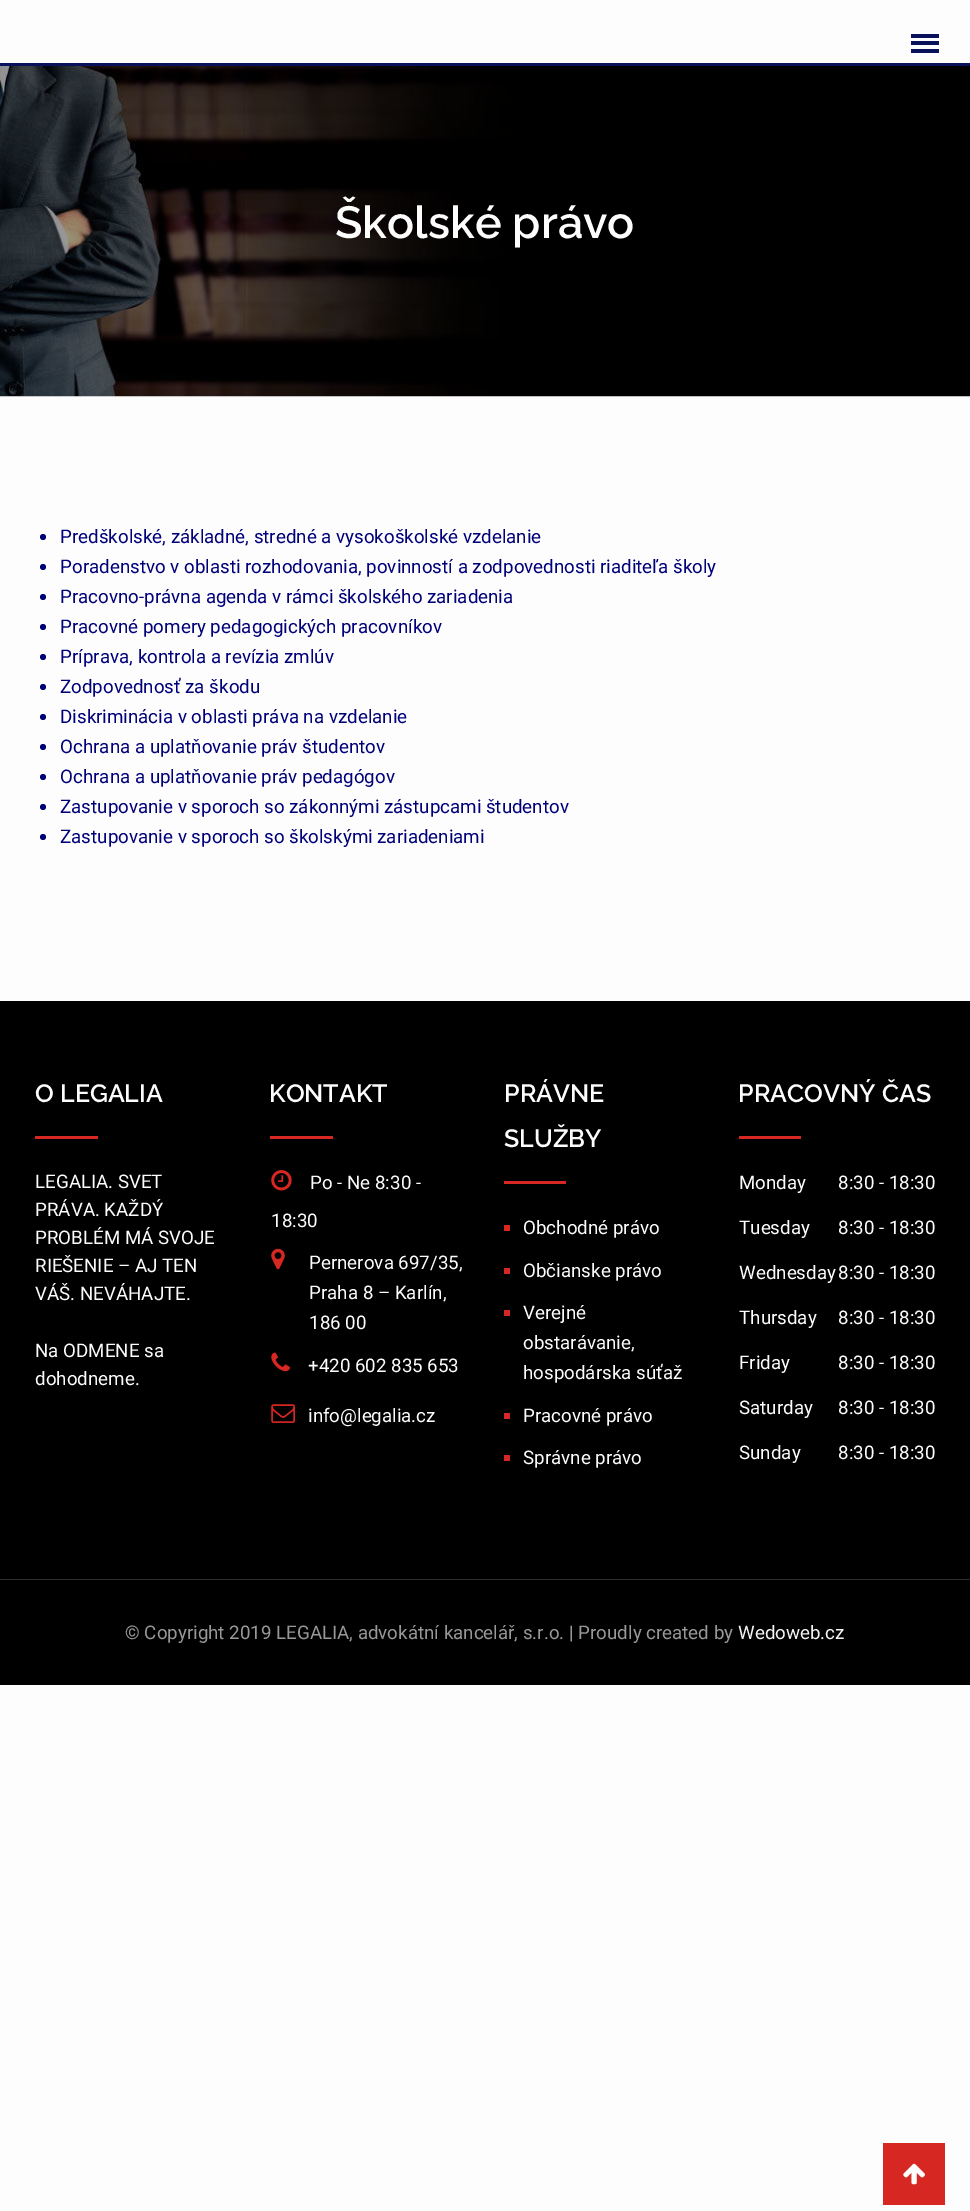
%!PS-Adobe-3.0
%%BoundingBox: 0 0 970 2211
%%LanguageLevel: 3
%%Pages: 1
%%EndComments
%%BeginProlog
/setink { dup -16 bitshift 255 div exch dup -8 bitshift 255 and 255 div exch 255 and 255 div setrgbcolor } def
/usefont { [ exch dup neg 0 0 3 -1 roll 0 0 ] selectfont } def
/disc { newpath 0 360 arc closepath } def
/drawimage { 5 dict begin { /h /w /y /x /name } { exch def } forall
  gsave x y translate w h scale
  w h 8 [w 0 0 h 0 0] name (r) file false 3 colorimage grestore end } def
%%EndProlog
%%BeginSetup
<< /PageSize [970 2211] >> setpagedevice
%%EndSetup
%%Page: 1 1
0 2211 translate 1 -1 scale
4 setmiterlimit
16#FDFDFD setink
0 0 970 2211 rectfill
[
    [0 63 970 3 16#081159]
    [911 34 28 4 16#081159]
    [911 41 28 4 16#081159]
    [911 49 28 4 16#081159]
] { aload pop setink rectfill } forall
(img1.raw) 0 66 970 331 drawimage
/Raleway-SemiBold 45 usefont
16#FDFDFD setink
335 238 moveto (Školské právo) show
16#000078 setink
43 537 3 disc fill
/Roboto-Regular 18.75 usefont
60 543 moveto (Predškolské, základné, stredné a vysokoškolské vzdelanie) show
43 567 3 disc fill
60 573 moveto (Poradenstvo v oblasti rozhodovania, povinností a zodpovednosti riaditeľa školy) show
43 597 3 disc fill
60 603 moveto (Pracovno-právna agenda v rámci školského zariadenia) show
43 627 3 disc fill
60 633 moveto (Pracovné pomery pedagogických pracovníkov) show
43 657 3 disc fill
60 663 moveto (Príprava, kontrola a revízia zmlúv) show
43 687 3 disc fill
60 693 moveto (Zodpovednosť za škodu) show
43 717 3 disc fill
60 723 moveto (Diskriminácia v oblasti práva na vzdelanie) show
43 747 3 disc fill
60 753 moveto (Ochrana a uplatňovanie práv študentov) show
43 777 3 disc fill
60 783 moveto (Ochrana a uplatňovanie práv pedagógov) show
43 807 3 disc fill
60 813 moveto (Zastupovanie v sporoch so zákonnými zástupcami študentov) show
43 837 3 disc fill
60 843 moveto (Zastupovanie v sporoch so školskými zariadeniami) show
16#000000 setink
0 1001 970 578 rectfill
/Raleway-SemiBold 25 usefont
16#FDFDFD setink
35 1102 moveto (O LEGALIA) show
16#D72723 setink
35 1136 63 3 rectfill
/Roboto-Regular 18.75 usefont
16#FDFDFD setink
[
    [(LEGALIA. SVET) 35 1188]
    [(PRÁVA. KAŽDÝ) 35 1216]
    [(PROBLÉM MÁ SVOJE) 35 1244]
    [(RIEŠENIE – AJ TEN) 35 1272]
    [(VÁŠ. NEVÁHAJTE.) 35 1300]
    [(Na ODMENE sa) 35 1357]
    [(dohodneme.) 35 1385]
] { aload pop moveto show } forall
/Raleway-SemiBold 25 usefont
269 1102 moveto (KONTAKT) show
16#D72723 setink
270 1136 63 3 rectfill
(img2.raw) 271 1170 21 21 drawimage
/Roboto-Regular 18.75 usefont
16#FDFDFD setink
310 1189 moveto (Po - Ne 8:30 -) show
271 1227 moveto (18:30) show
(img3.raw) 271 1248 14 22 drawimage
[
    [(Pernerova 697/35,) 309 1269]
    [(Praha 8 – Karlín,) 309 1299]
    [(186 00) 309 1329]
] { aload pop moveto show } forall
(img4.raw) 271 1352 19 20 drawimage
308 1372 moveto (+420 602 835 653) show
(img5.raw) 271 1404 24 19 drawimage
308 1422 moveto (info@legalia.cz) show
/Raleway-SemiBold 25 usefont
504 1102 moveto (PRÁVNE) show
504 1147 moveto (SLUŽBY) show
16#D72723 setink
504 1181 62 3 rectfill
504 1225 6 6 rectfill
/Roboto-Regular 18.75 usefont
16#FDFDFD setink
523 1234 moveto (Obchodné právo) show
16#D72723 setink
504 1268 6 6 rectfill
16#FDFDFD setink
523 1277 moveto (Občianske právo) show
16#D72723 setink
504 1310 6 6 rectfill
16#FDFDFD setink
[
    [(Verejné) 523 1319]
    [(obstarávanie,) 523 1349]
    [(hospodárska súťaž) 523 1379]
] { aload pop moveto show } forall
16#D72723 setink
504 1413 6 6 rectfill
16#FDFDFD setink
523 1422 moveto (Pracovné právo) show
16#D72723 setink
504 1455 6 6 rectfill
16#FDFDFD setink
523 1464 moveto (Správne právo) show
/Raleway-SemiBold 25 usefont
738 1102 moveto (PRACOVNÝ ČAS) show
16#D72723 setink
739 1136 62 3 rectfill
/Roboto-Regular 18.75 usefont
16#FDFDFD setink
[
    [(Monday) 739 1189]
    [(8:30 - 18:30) 838 1189]
    [(Tuesday) 739 1234]
    [(8:30 - 18:30) 838 1234]
    [(Wednesday) 739 1279]
    [(8:30 - 18:30) 838 1279]
    [(Thursday) 739 1324]
    [(8:30 - 18:30) 838 1324]
    [(Friday) 739 1369]
    [(8:30 - 18:30) 838 1369]
    [(Saturday) 739 1414]
    [(8:30 - 18:30) 838 1414]
    [(Sunday) 739 1459]
    [(8:30 - 18:30) 838 1459]
] { aload pop moveto show } forall
16#000000 setink
0 1580 970 105 rectfill
16#2D2D2D setink
0 1579 970 1 rectfill
16#989898 setink
125 1639 moveto (© Copyright 2019 LEGALIA, advokátní kancelář, s.r.o. | Proudly created by) show
16#F3F3F3 setink
738 1639 moveto (Wedoweb.cz) show
16#D72723 setink
883 2143 62 62 rectfill
(img6.raw) 903 2163 22 22 drawimage
showpage
%%EOF
